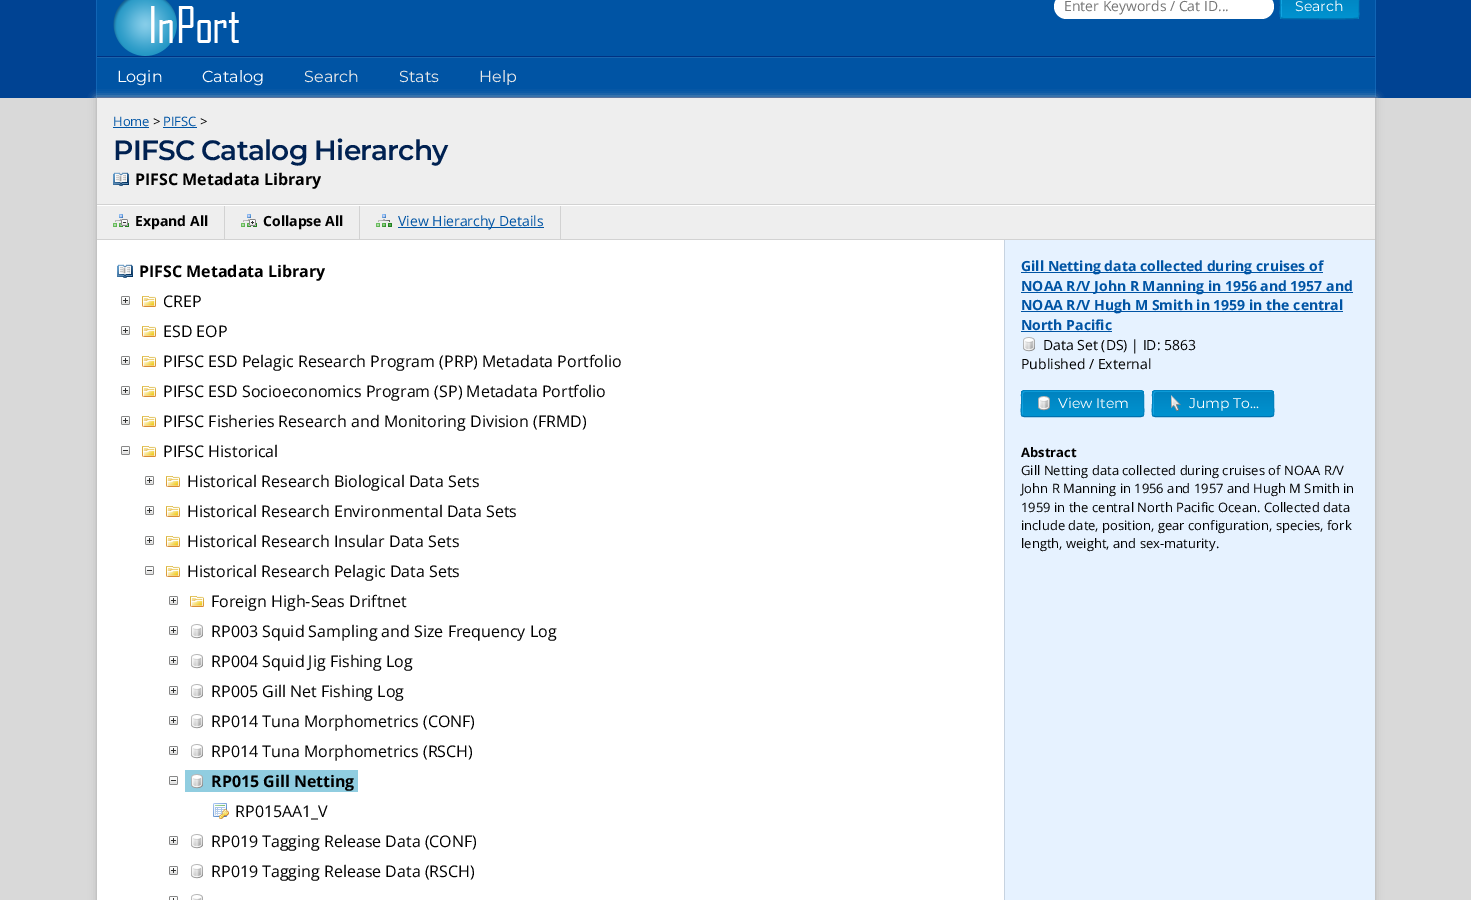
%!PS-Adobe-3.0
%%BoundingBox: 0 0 1471 900
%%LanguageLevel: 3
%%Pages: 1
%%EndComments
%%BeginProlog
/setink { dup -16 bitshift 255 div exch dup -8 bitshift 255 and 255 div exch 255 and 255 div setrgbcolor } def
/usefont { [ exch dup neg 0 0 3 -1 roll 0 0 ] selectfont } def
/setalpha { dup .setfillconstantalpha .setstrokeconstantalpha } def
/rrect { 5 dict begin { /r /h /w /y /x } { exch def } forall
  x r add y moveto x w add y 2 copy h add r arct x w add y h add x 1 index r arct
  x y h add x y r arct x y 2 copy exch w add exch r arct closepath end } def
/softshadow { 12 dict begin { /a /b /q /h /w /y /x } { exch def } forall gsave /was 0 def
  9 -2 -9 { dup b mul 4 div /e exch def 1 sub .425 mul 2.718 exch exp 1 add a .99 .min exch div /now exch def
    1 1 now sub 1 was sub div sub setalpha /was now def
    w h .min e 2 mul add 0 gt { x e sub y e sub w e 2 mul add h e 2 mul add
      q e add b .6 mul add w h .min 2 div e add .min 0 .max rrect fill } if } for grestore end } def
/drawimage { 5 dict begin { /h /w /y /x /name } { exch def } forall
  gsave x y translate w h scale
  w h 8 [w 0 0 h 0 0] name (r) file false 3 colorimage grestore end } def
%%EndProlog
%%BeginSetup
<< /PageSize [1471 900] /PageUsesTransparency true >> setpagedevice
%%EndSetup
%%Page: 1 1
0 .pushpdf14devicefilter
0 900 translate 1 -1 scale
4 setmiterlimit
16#004393 setink
0 0 1471 900 rectfill
[
    [97 0 1278 56 16#0054A4]
    [1375 0 1 98 16#1165B5]
    [96 0 1 56 16#1165B5]
] { aload pop setink rectfill } forall
(img1.raw) 113 0 126 56 drawimage
16#FFFFFF setink
1054 -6 220 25 12.5 rrect fill
/OpenSans-Regular 14 usefont
16#757575 setink
1064 11 moveto (Enter Keywords / Cat ID...) show
gsave
1280 -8 79 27 3 rrect clip newpath
gsave 1280 0 moveto 1359 0 lineto 1359 18 lineto 1280 18 lineto closepath clip newpath
<< /ShadingType 2 /ColorSpace /DeviceRGB /Coords [1320 18 1320 -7] /Extend [true true] /Function << /FunctionType 2 /Domain [0 1] /C0 [0 0.576 0.816] /C1 [0 0.51 0.749] /N 1 >> >> shfill grestore
gsave 1280 18 moveto 1359 18 lineto 1359 19 lineto 1280 19 lineto closepath clip newpath
<< /ShadingType 2 /ColorSpace /DeviceRGB /Coords [1320 43 1320 18] /Extend [true true] /Function << /FunctionType 2 /Domain [0 1] /C0 [0 0.576 0.816] /C1 [0 0.51 0.749] /N 1 >> >> shfill grestore
grestore
16#11A4E1 setink
1284 -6 moveto 1358 -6 lineto 1356 -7 lineto 1295 -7 lineto 1280 -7 1281 -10 1281 2 curveto 1281 5 1280 17 1282 18 curveto 1282 0 lineto 1282 -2 1281 -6 1284 -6 curveto closepath fill
16#0071AE setink
1358 18 moveto 1357.5 18 lineto 1355.5 19.5 1302 18.5 1295 18.5 curveto 1283 18.5 lineto 1281 18 lineto stroke
16#0082BF setink
1281 18 moveto 1279.5 16 1280.5 8 1280.5 5.5 curveto 1280.5 -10.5 1278 -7.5 1295 -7.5 curveto 1344 -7.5 lineto 1362.5 -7.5 1358.5 -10 1358.5 9 curveto 1358.5 11 1359.5 16 1358 18 curveto stroke
/Montserrat-Regular 14 usefont
16#FFFFFF setink
1295 11 moveto (Search) show
[
    [97 58 1278 39 16#0054A4]
    [96 97 1280 1 16#003282]
    [96 56 1 42 16#1165B5]
    [97 57 1278 1 16#1A65AD]
    [97 56 1278 1 16#003282]
    [0 98 1471 802 16#D9D9D9]
] { aload pop setink rectfill } forall
16#BBBBBB setink
96 98 1280 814 0 4 1 softshadow
/Montserrat-Regular 16 usefont
16#FFFFFF setink
117 82 moveto (Login) show
202 82 moveto (Catalog) show
16#E9E9E9 setink
[
    [(Search) 304 82]
    [(Stats) 399 82]
    [(Help) 479 82]
] { aload pop moveto show } forall
[
    [97 240 907 660 16#FFFFFF]
    [1375 98 1 802 16#C3C3C3]
    [96 98 1 802 16#C3C3C3]
    [97 98 1278 106 16#EEEEEE]
    [97 204 1278 1 16#D2D2D2]
] { aload pop setink rectfill } forall
/OpenSans-Regular 13 usefont
16#0054A4 setink
113 126 moveto (Home) show
113 127 36 1 rectfill
16#000000 setink
153 126 moveto (>) show
16#0054A4 setink
163 126 moveto (PIFSC) show
163 127 34 1 rectfill
16#000000 setink
200 126 moveto (>) show
/Montserrat-SemiBold 28 usefont
16#002151 setink
113 160 moveto -0.75 0 (PIFSC Catalog Hierarchy) ashow
(img2.raw) 113 172 16 14 drawimage
/OpenSans-Bold 16 usefont
16#000000 setink
135 185 moveto (PIFSC Metadata Library) show
[
    [97 206 1278 33 16#EEEEEE]
    [97 205 1278 1 16#FFFFFF]
    [97 239 1278 1 16#D2D2D2]
    [224 206 1 33 16#D2D2D2]
] { aload pop setink rectfill } forall
(img3.raw) 113 214 16 13 drawimage
/OpenSans-Bold 14 usefont
16#000000 setink
135 226 moveto (Expand All) show
16#D2D2D2 setink
359 206 1 33 rectfill
(img4.raw) 241 214 16 13 drawimage
16#000000 setink
263 226 moveto (Collapse All) show
16#D2D2D2 setink
560 206 1 33 rectfill
(img5.raw) 376 214 16 13 drawimage
16#0054A4 setink
398 227 146 1 rectfill
/OpenSans-Regular 14 usefont
398 226 moveto (View Hierarchy Details) show
(img6.raw) 117 264 16 14 drawimage
/OpenSans-Bold 16 usefont
16#000000 setink
139 277 moveto (PIFSC Metadata Library) show
(img7.raw) 121 296 9 9 drawimage
(img8.raw) 142 296 14 11 drawimage
/OpenSans-Regular 16 usefont
163 307 moveto (CREP) show
(img7.raw) 121 326 9 9 drawimage
(img8.raw) 142 326 14 11 drawimage
163 337 moveto (ESD EOP) show
(img7.raw) 121 356 9 9 drawimage
(img8.raw) 142 356 14 11 drawimage
163 367 moveto (PIFSC ESD Pelagic Research Program \(PRP\) Metadata Portfolio) show
(img7.raw) 121 386 9 9 drawimage
(img8.raw) 142 386 14 11 drawimage
163 397 moveto (PIFSC ESD Socioeconomics Program \(SP\) Metadata Portfolio) show
(img7.raw) 121 416 9 9 drawimage
(img8.raw) 142 416 14 11 drawimage
163 427 moveto (PIFSC Fisheries Research and Monitoring Division \(FRMD\)) show
(img9.raw) 121 446 9 9 drawimage
(img8.raw) 142 446 14 11 drawimage
163 457 moveto (PIFSC Historical) show
(img7.raw) 145 476 9 9 drawimage
(img8.raw) 166 476 14 11 drawimage
187 487 moveto (Historical Research Biological Data Sets) show
(img7.raw) 145 506 9 9 drawimage
(img8.raw) 166 506 14 11 drawimage
187 517 moveto (Historical Research Environmental Data Sets) show
(img7.raw) 145 536 9 9 drawimage
(img8.raw) 166 536 14 11 drawimage
187 547 moveto (Historical Research Insular Data Sets) show
(img9.raw) 145 566 9 9 drawimage
(img8.raw) 166 566 14 11 drawimage
187 577 moveto (Historical Research Pelagic Data Sets) show
(img7.raw) 169 596 9 9 drawimage
(img8.raw) 190 596 14 11 drawimage
211 607 moveto (Foreign High-Seas Driftnet) show
(img7.raw) 169 626 9 9 drawimage
(img10.raw) 191 624 12 15 drawimage
211 637 moveto (RP003 Squid Sampling and Size Frequency Log) show
(img7.raw) 169 656 9 9 drawimage
(img10.raw) 191 654 12 15 drawimage
211 667 moveto (RP004 Squid Jig Fishing Log) show
(img7.raw) 169 686 9 9 drawimage
(img10.raw) 191 684 12 15 drawimage
211 697 moveto (RP005 Gill Net Fishing Log) show
(img7.raw) 169 716 9 9 drawimage
(img10.raw) 191 714 12 15 drawimage
211 727 moveto (RP014 Tuna Morphometrics \(CONF\)) show
(img7.raw) 169 746 9 9 drawimage
(img10.raw) 191 744 12 15 drawimage
211 757 moveto (RP014 Tuna Morphometrics \(RSCH\)) show
(img9.raw) 169 776 9 9 drawimage
16#90CDE0 setink
185 770 173 22 rectfill
(img11.raw) 191 774 12 15 drawimage
/OpenSans-Bold 16 usefont
16#000000 setink
211 787 moveto (RP015 Gill Netting) show
(img12.raw) 213 803 16 16 drawimage
/OpenSans-Regular 16 usefont
235 817 moveto (RP015AA1_V) show
(img7.raw) 169 836 9 9 drawimage
(img10.raw) 191 834 12 15 drawimage
211 847 moveto (RP019 Tagging Release Data \(CONF\)) show
(img7.raw) 169 866 9 9 drawimage
(img10.raw) 191 864 12 15 drawimage
211 877 moveto (RP019 Tagging Release Data \(RSCH\)) show
(img13.raw) 169 896 9 4 drawimage
(img14.raw) 191 894 12 6 drawimage
[
    [1005 240 370 660 16#E6F2FF]
    [1004 240 1 660 16#C7D3E0]
    [1021 272 302 1 16#0054A4]
] { aload pop setink rectfill } forall
/OpenSans-Bold 14 usefont
1021 271 moveto (Gill Netting data collected during cruises of) show
1021 292 332 1 rectfill
1021 291 moveto (NOAA R/V John R Manning in 1956 and 1957 and) show
1021 311 322 1 rectfill
1021 310 moveto (NOAA R/V Hugh M Smith in 1959 in the central) show
1021 330 moveto (North Pacific) show
1021 331 91 1 rectfill
(img15.raw) 1023 337 12 15 drawimage
/OpenSans-Regular 14 usefont
16#000000 setink
1043 350 moveto (Data Set \(DS\) | ID: 5863) show
1021 369 moveto (Published / External) show
gsave
1021 390 123 27 3 rrect clip newpath
gsave 1021 391 moveto 1144 391 lineto 1144 416 lineto 1021 416 lineto closepath clip newpath
<< /ShadingType 2 /ColorSpace /DeviceRGB /Coords [1083 416 1083 391] /Extend [true true] /Function << /FunctionType 2 /Domain [0 1] /C0 [0 0.576 0.816] /C1 [0 0.51 0.749] /N 1 >> >> shfill grestore
grestore
16#11A4E1 setink
1025 392 moveto 1143 392 lineto 1141 391 lineto 1024 391 lineto 1023 391 1022 392 1022 393 curveto 1022 396 1021 415 1023 416 curveto 1023 398 lineto 1023 396 1022 392 1025 392 curveto closepath fill
16#0071AE setink
1143 416 moveto 1141 416.5 lineto 1043.5 416.5 lineto 1024 416.5 lineto 1022 416 lineto stroke
16#0082BF setink
1022 416 moveto 1020.5 414 1021.5 406 1021.5 403.5 curveto 1021.5 396.5 lineto 1021.5 394.5 1021 390.5 1024 390.5 curveto 1141 390.5 lineto 1144 390.5 1143.5 394.5 1143.5 396.5 curveto 1143.5 403.5 lineto 1143.5 406 1144.5 414 1143 416 curveto stroke
(img16.raw) 1038 396 12 15 drawimage
/Montserrat-Regular 14 usefont
16#FFFFFF setink
1058 408 moveto (View Item) show
gsave
1152 390 122 27 3 rrect clip newpath
gsave 1152 391 moveto 1274 391 lineto 1274 416 lineto 1152 416 lineto closepath clip newpath
<< /ShadingType 2 /ColorSpace /DeviceRGB /Coords [1213 416 1213 391] /Extend [true true] /Function << /FunctionType 2 /Domain [0 1] /C0 [0 0.576 0.816] /C1 [0 0.51 0.749] /N 1 >> >> shfill grestore
grestore
16#11A4E1 setink
1156 392 moveto 1273 392 lineto 1271 391 lineto 1154 391 lineto 1153 393 lineto 1153 396 1152 415 1154 416 curveto 1154 398 lineto 1154 396 1153 392 1156 392 curveto closepath fill
16#0071AE setink
1273 416 moveto 1271 416.5 lineto 1174.5 416.5 lineto 1155 416.5 lineto 1153 416 lineto stroke
16#0082BF setink
1153 416 moveto 1151.5 414 1152.5 406 1152.5 403.5 curveto 1152.5 396.5 lineto 1152.5 394.5 1152 390.5 1155 390.5 curveto 1271 390.5 lineto 1274 390.5 1273.5 394.5 1273.5 396.5 curveto 1273.5 403.5 lineto 1273.5 406 1274.5 414 1273 416 curveto stroke
(img17.raw) 1171 395 10 16 drawimage
16#FFFFFF setink
1189 408 moveto (Jump To...) show
/OpenSans-Bold 13 usefont
16#000000 setink
1021 457 moveto (Abstract) show
/OpenSans-Regular 13 usefont
[
    [(Gill Netting data collected during cruises of NOAA R/V) 1021 475]
    [(John R Manning in 1956 and 1957 and Hugh M Smith in) 1021 493]
    [(1959 in the central North Pacific Ocean. Collected data) 1021 512]
    [(include date, position, gear configuration, species, fork) 1021 530]
    [(length, weight, and sex-maturity.) 1021 548]
] { aload pop moveto show } forall
.poppdf14devicefilter showpage
%%EOF
